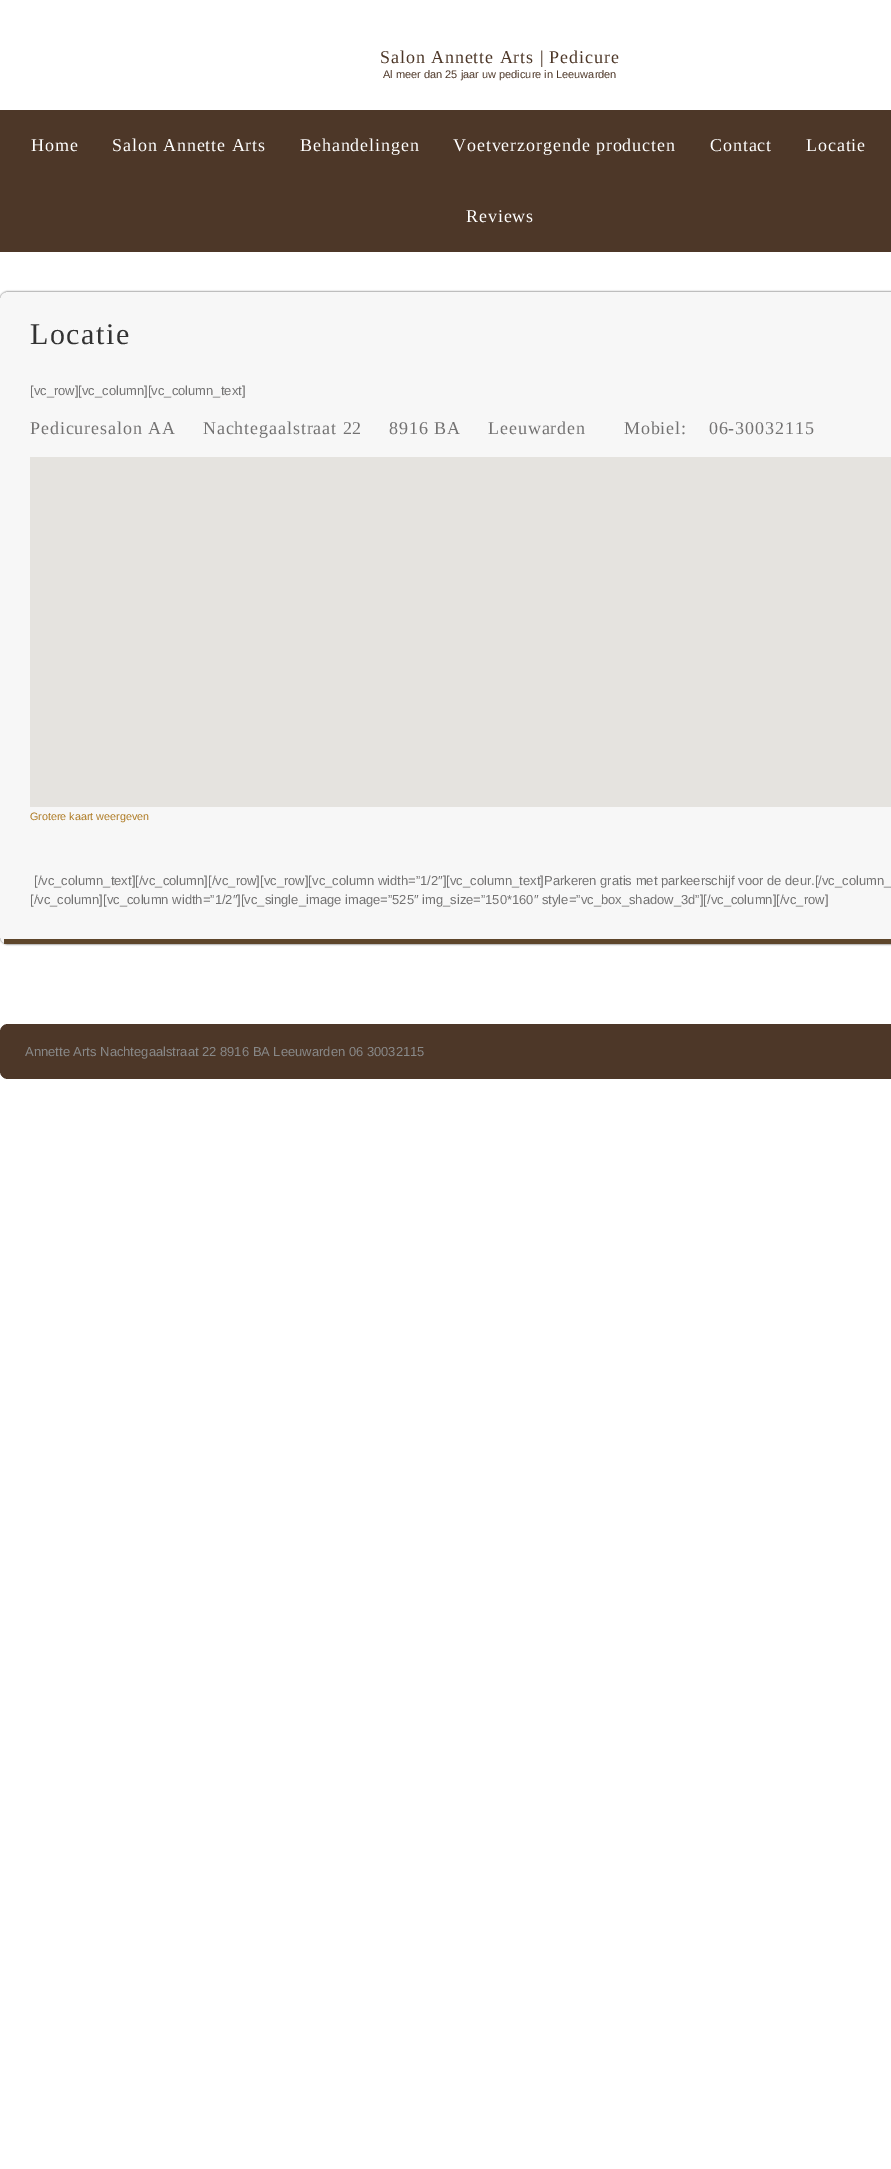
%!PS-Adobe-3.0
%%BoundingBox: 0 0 891 2169
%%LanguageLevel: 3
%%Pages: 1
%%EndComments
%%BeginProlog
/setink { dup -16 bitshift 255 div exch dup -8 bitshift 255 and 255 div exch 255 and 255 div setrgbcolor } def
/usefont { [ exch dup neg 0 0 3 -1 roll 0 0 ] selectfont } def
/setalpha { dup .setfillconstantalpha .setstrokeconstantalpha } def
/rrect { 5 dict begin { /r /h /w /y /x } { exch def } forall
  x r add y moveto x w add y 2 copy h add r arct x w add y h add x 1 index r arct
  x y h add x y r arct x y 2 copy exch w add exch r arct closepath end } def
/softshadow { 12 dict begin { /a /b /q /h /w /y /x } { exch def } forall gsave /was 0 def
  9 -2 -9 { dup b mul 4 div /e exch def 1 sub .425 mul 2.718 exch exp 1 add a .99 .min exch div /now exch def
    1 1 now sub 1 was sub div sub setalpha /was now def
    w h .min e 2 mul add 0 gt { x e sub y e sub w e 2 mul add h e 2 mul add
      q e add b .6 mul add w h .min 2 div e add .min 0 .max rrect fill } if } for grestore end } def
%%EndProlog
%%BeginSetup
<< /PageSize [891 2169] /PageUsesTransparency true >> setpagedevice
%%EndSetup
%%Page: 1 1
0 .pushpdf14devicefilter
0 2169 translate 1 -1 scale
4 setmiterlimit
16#FFFFFF setink
0 0 891 2169 rectfill
/LiberationSerif-Regular 18 usefont
16#4D3728 setink
380 63 moveto 0.9 0 (Salon Annette Arts | Pedicure) ashow
/LiberationSans-Regular 11 usefont
383 78 moveto (Al meer dan 25 jaar uw pedicure in Leeuwarden) show
0 110 891 142 rectfill
/LiberationSerif-Regular 18 usefont
16#FFFFFF setink
31 151 moveto 0.9 0 (Home) ashow
112 151 moveto 0.9 0 (Salon Annette Arts) ashow
300 151 moveto 0.9 0 (Behandelingen) ashow
453 151 moveto 0.9 0 (Voetverzorgende producten) ashow
710 151 moveto 0.9 0 (Contact) ashow
806 151 moveto 0.9 0 (Locatie) ashow
466 222 moveto 0.9 0 (Reviews) ashow
16#000000 setink
0 292 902 652 8 1 0.8 softshadow
16#F7F7F7 setink
0 292 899 652 8 rrect fill
16#5E462B setink
4 939 887 5 rectfill
/LiberationSerif-Regular 30 usefont
16#333333 setink
30 344 moveto 1.5 0 (Locatie) ashow
/LiberationSans-Regular 13 usefont
16#737272 setink
30 395 moveto ([vc_row][vc_column][vc_column_text]) show
/LiberationSerif-Regular 18 usefont
30 434 moveto 0.9 0 (Pedicuresalon AA     Nachtegaalstraat 22     8916 BA     Leeuwarden       Mobiel:    06-30032115) ashow
16#E5E3DF setink
30 457 861 350 rectfill
/LiberationSans-Regular 10.75 usefont
16#AD7A23 setink
30 820 moveto (Grotere kaart weergeven) show
/LiberationSans-Regular 13 usefont
16#737272 setink
34 885 moveto ([/vc_column_text][/vc_column][/vc_row][vc_row][vc_column width=”1/2″][vc_column_text]Parkeren gratis met parkeerschijf voor de deur.[/vc_column_) show
30 904 moveto ([/vc_column][vc_column width=”1/2″][vc_single_image image=”525″ img_size=”150*160″ style=”vc_box_shadow_3d”][/vc_column][/vc_row]) show
16#4D3728 setink
0 1024 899 55 8 rrect fill
16#888888 setink
25 1056 moveto (Annette Arts Nachtegaalstraat 22 8916 BA Leeuwarden 06 30032115) show
.poppdf14devicefilter showpage
%%EOF
